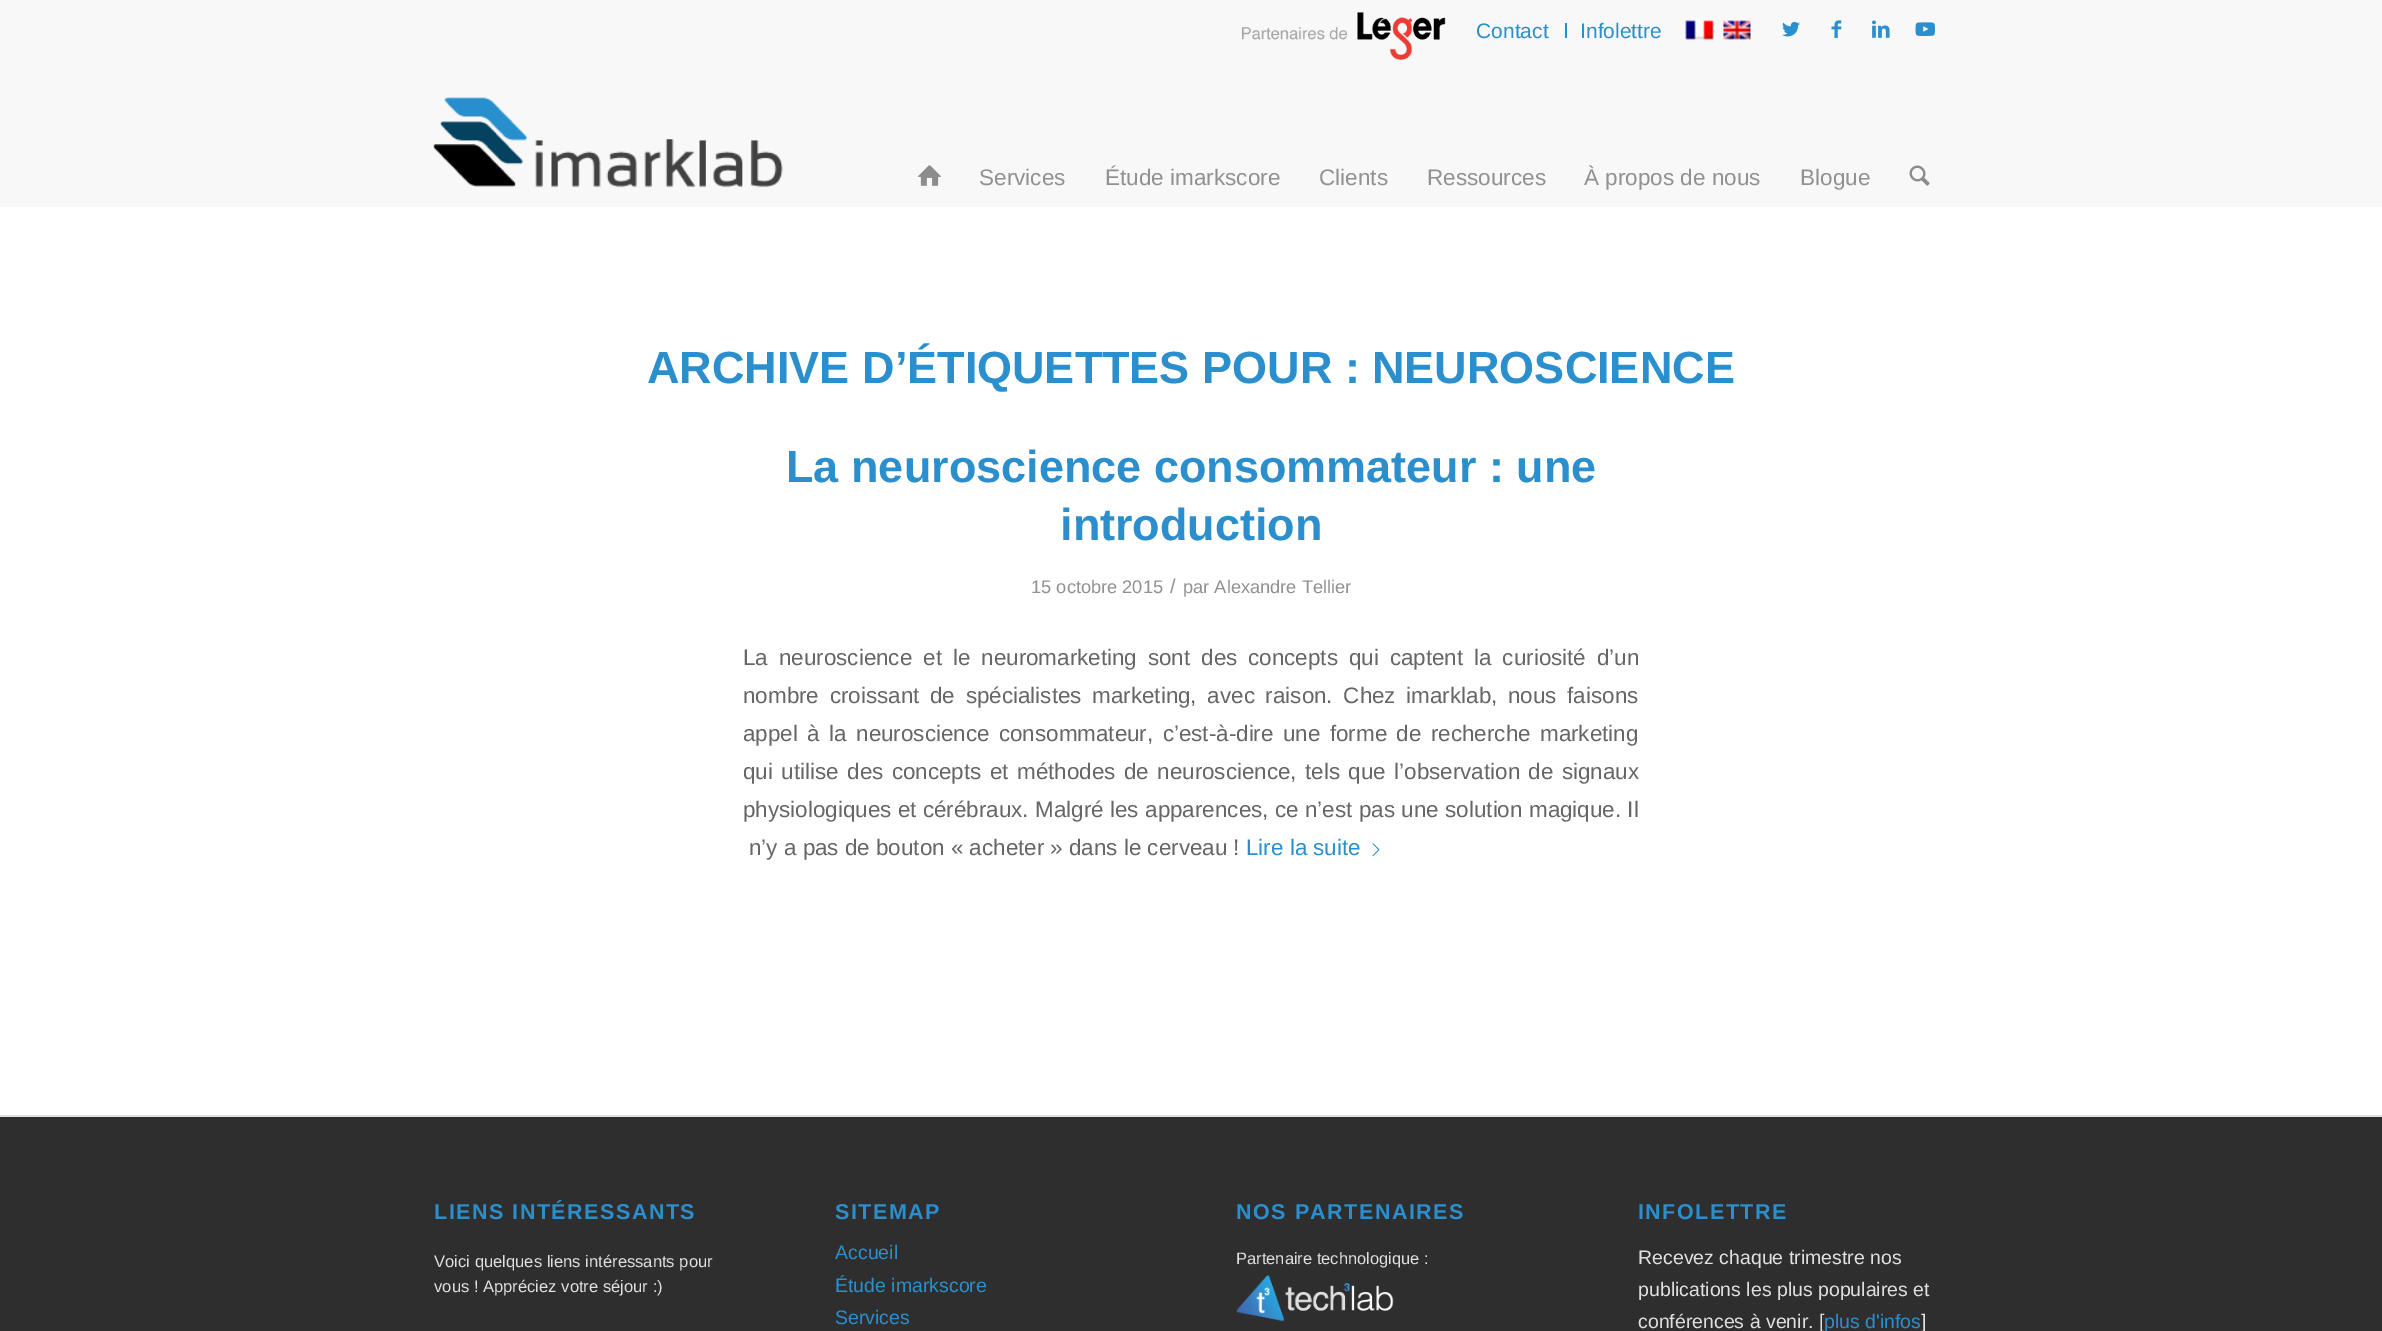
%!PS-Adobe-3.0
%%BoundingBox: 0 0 2382 1331
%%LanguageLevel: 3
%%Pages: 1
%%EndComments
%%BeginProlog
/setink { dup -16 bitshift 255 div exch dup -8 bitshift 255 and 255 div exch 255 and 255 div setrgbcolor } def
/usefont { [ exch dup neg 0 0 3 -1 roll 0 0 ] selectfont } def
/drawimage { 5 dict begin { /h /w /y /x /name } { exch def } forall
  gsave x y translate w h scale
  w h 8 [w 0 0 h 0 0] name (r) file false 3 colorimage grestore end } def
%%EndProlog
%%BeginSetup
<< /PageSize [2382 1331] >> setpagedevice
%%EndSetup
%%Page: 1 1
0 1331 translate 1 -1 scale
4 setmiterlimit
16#FFFFFF setink
0 0 2382 1331 rectfill
16#F8F8F8 setink
0 0 2382 207 rectfill
(img1.raw) 1242 12 204 48 drawimage
16#278ECE setink
1565 23 2 15 rectfill
/LiberationSans-Regular 21 usefont
16#2B8FCD setink
1476 38 moveto (Contact) show
1580 38 moveto (Infolettre) show
(img2.raw) 1685 20 29 20 drawimage
(img3.raw) 1723 20 28 20 drawimage
(img4.raw) 1782 21 18 16 drawimage
(img5.raw) 1831 20 11 18 drawimage
(img6.raw) 1872 20 18 18 drawimage
(img7.raw) 1915 22 20 15 drawimage
(img8.raw) 433 97 350 91 drawimage
(img9.raw) 918 165 23 21 drawimage
/LiberationSans-Regular 22.5 usefont
16#919191 setink
[
    [(Services) 979 185]
    [(Étude imarkscore) 1105 185]
    [(Clients) 1319 185]
    [(Ressources) 1427 185]
    [(À propos de nous) 1584 185]
    [(Blogue) 1800 185]
] { aload pop moveto show } forall
(img10.raw) 1909 165 21 21 drawimage
/LiberationSans-Bold 45 usefont
16#2B8FCD setink
[
    [(ARCHIVE D’ÉTIQUETTES POUR : NEUROSCIENCE) 647 383]
    [(La neuroscience consommateur : une) 786 482]
    [(introduction) 1060 540]
] { aload pop moveto show } forall
/LiberationSans-Regular 18.25 usefont
16#919191 setink
1031 593 moveto (15 octobre 2015) show
/LiberationSans-Regular 20 usefont
1170 593 moveto (/) show
/LiberationSans-Regular 18.25 usefont
1183 593 moveto (par Alexandre Tellier) show
/LiberationSans-Regular 22.4 usefont
16#666666 setink
743 665 moveto 4.75 0 32 (La neuroscience et le neuromarketing sont des concepts qui captent la curiosité d’un) widthshow
743 703 moveto 4.5 0 32 (nombre croissant de spécialistes marketing, avec raison. Chez imarklab, nous faisons) widthshow
743 741 moveto 3.25 0 32 (appel à la neuroscience consommateur, c’est-à-dire une forme de recherche marketing) widthshow
743 779 moveto 2.25 0 32 (qui utilise des concepts et méthodes de neuroscience, tels que l’observation de signaux) widthshow
743 817 moveto 0.25 0 32 (physiologiques et cérébraux. Malgré les apparences, ce n’est pas une solution magique. Il) widthshow
749 855 moveto (n’y a pas de bouton « acheter » dans le cerveau !) show
16#2B8FCD setink
1246 855 moveto (Lire la suite) show
(img11.raw) 1372 843 8 14 drawimage
16#2E2E2E setink
0 1117 2382 214 rectfill
16#E1E1E1 setink
0 1115 2382 2 rectfill
/LiberationSans-Bold 21.5 usefont
16#2B8FCD setink
434 1219 moveto 1.5 0 (LIENS INTÉRESSANTS) ashow
/LiberationSans-Regular 16.6 usefont
16#E0E0E0 setink
434 1267 moveto (Voici quelques liens intéressants pour) show
434 1292 moveto (vous ! Appréciez votre séjour :\)) show
/LiberationSans-Bold 21.5 usefont
16#2B8FCD setink
835 1219 moveto 1.5 0 (SITEMAP) ashow
/LiberationSans-Regular 19.5 usefont
[
    [(Accueil) 835 1259]
    [(Étude imarkscore) 835 1292]
    [(Services) 835 1324]
] { aload pop moveto show } forall
/LiberationSans-Bold 21.5 usefont
1236 1219 moveto 1.5 0 (NOS PARTENAIRES) ashow
/LiberationSans-Regular 16.5 usefont
16#E0E0E0 setink
1236 1264 moveto (Partenaire technologique :) show
(img12.raw) 1236 1275 158 47 drawimage
/LiberationSans-Bold 21.5 usefont
16#2B8FCD setink
1638 1219 moveto 1.5 0 (INFOLETTRE) ashow
/LiberationSans-Regular 19.5 usefont
16#E0E0E0 setink
[
    [(Recevez chaque trimestre nos) 1638 1264]
    [(publications les plus populaires et) 1638 1296]
    [(conférences à venir. [) 1638 1328]
] { aload pop moveto show } forall
16#2B8FCD setink
1824 1328 moveto (plus d'infos) show
16#E0E0E0 setink
1921 1328 moveto (]) show
showpage
%%EOF
